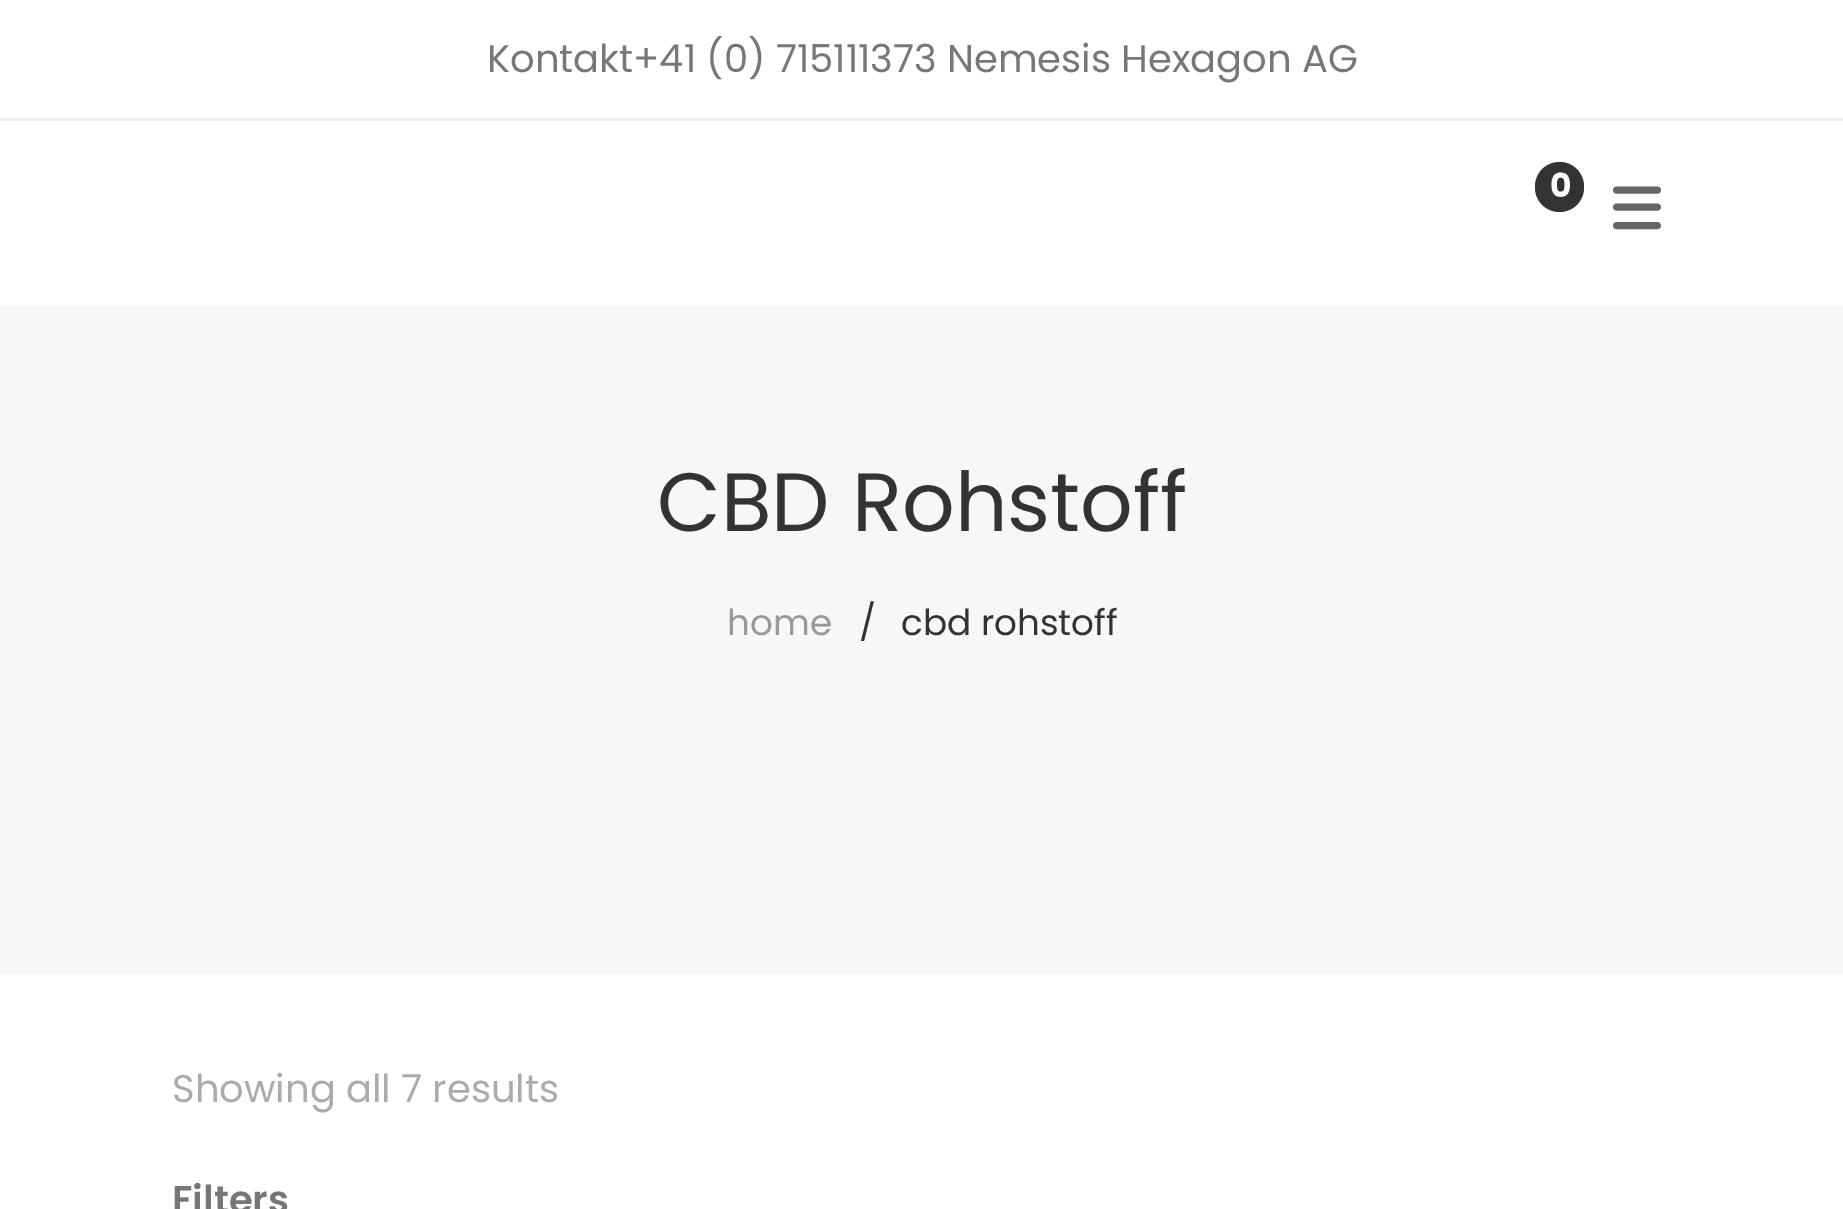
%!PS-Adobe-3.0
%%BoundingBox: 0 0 1843 1209
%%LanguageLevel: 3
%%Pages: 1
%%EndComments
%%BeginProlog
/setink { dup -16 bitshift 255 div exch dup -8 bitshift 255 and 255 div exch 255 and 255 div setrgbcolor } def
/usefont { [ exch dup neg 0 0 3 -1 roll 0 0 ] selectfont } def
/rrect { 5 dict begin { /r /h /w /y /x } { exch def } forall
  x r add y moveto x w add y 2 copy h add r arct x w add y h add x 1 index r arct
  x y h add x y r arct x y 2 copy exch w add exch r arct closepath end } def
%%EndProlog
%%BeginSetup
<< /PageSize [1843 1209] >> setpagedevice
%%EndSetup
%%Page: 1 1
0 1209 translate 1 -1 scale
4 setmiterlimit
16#FFFFFF setink
0 0 1843 1209 rectfill
16#EEEEEE setink
0 118 1843 3 rectfill
/Poppins-Regular 38.5 usefont
16#777777 setink
487 72 moveto (Kontakt+41 \(0\) 715111373 Nemesis Hexagon AG) show
16#333333 setink
1535 162 49 50 24.5 rrect fill
/Poppins-Bold 33 usefont
16#FFFFFF setink
1550 197 moveto (0) show
16#666666 setink
6.9 setlinewidth
1 setlinecap
1616.5 190 moveto 1657.5 190 lineto 1616.5 207 moveto 1657.5 207 lineto 1616.5 225.5 moveto 1657.5 225.5 lineto stroke
16#F7F7F7 setink
0 305 1843 669 rectfill
/Poppins-Regular 82.5 usefont
16#333333 setink
657 531 moveto (CBD Rohstoff) show
/Poppins-Regular 35.75 usefont
16#999999 setink
727 635 moveto (home) show
16#333333 setink
859 635 moveto (/) show
901 635 moveto (cbd rohstoff) show
/Poppins-Regular 38.5 usefont
16#ABABAB setink
172 1102 moveto (Showing all 7 results) show
/Poppins-SemiBold 38.5 usefont
16#777777 setink
172 1213 moveto (Filters) show
showpage
%%EOF
